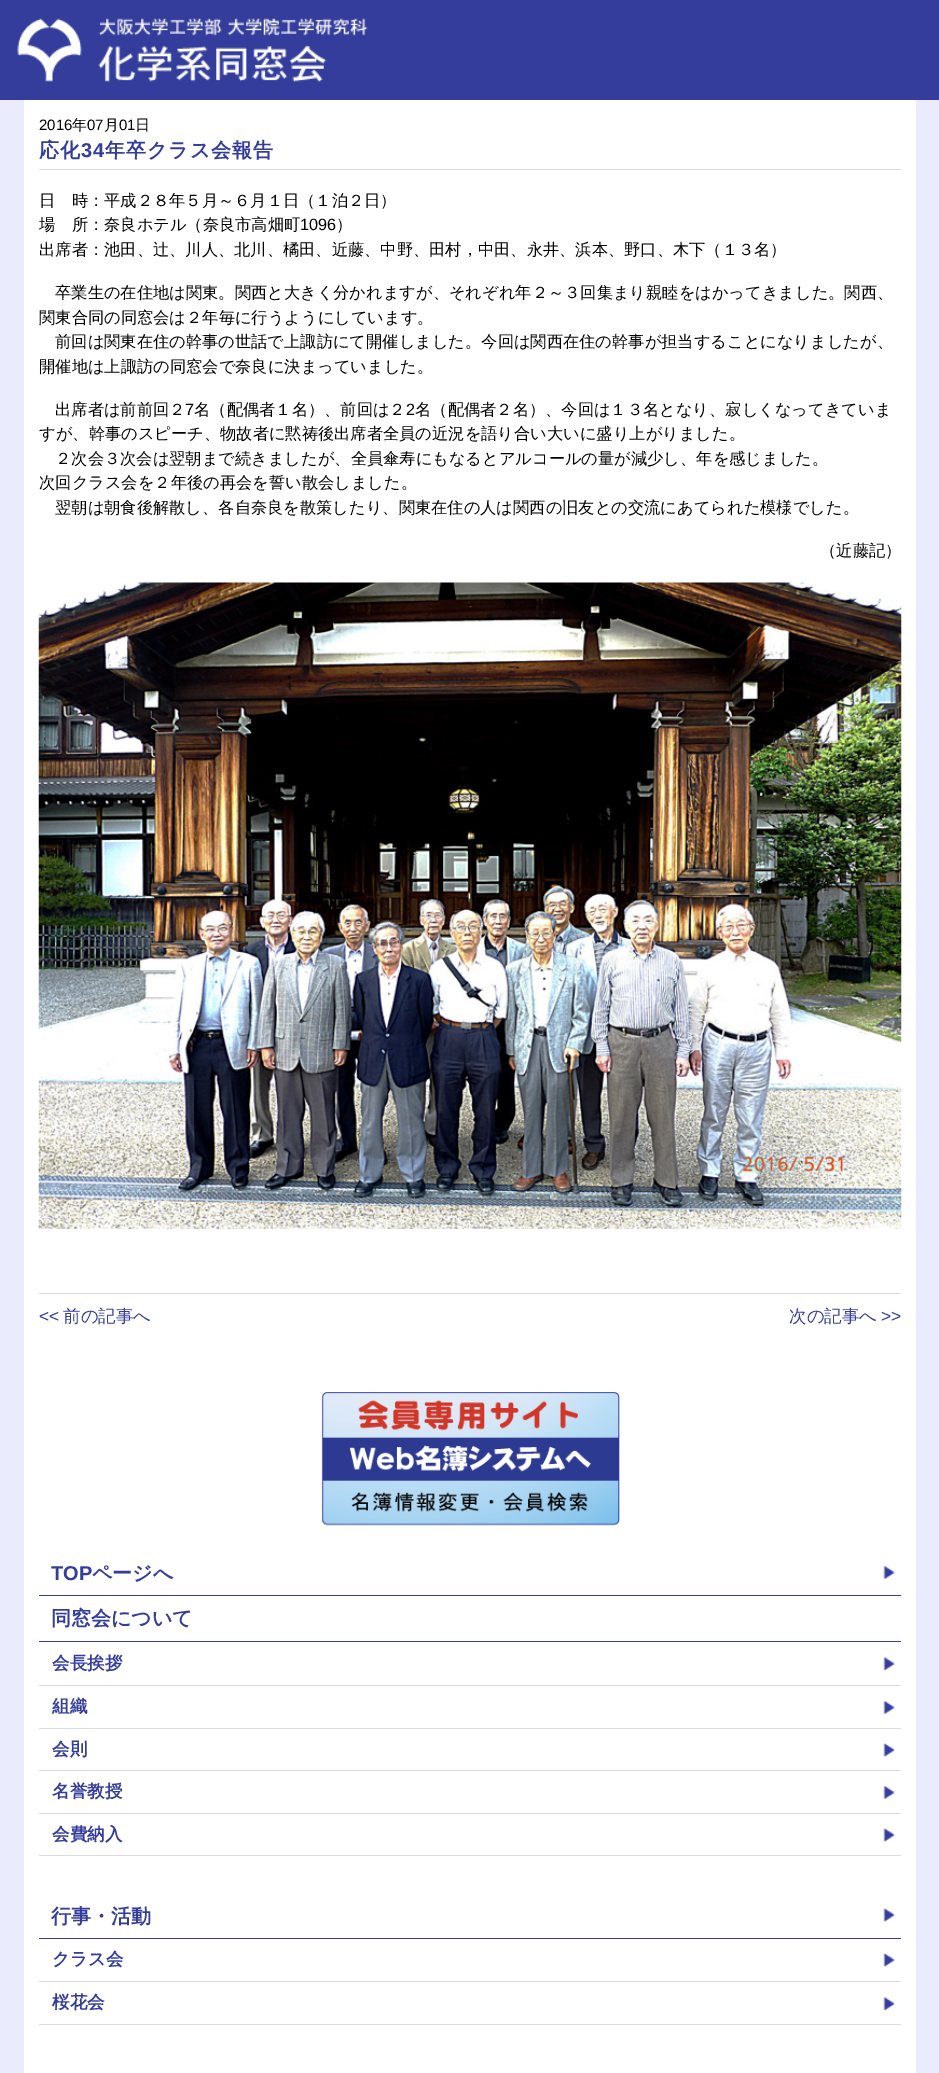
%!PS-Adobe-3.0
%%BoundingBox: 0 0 939 2073
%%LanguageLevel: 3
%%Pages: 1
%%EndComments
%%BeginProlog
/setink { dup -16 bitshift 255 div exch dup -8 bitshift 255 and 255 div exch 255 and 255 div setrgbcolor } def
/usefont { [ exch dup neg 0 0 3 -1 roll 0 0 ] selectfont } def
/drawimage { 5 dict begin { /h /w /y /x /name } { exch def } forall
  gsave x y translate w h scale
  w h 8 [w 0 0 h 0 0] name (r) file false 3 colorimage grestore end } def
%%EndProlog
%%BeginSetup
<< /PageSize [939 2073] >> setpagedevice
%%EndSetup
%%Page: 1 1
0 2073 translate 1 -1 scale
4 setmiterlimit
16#EAECFD setink
0 0 939 2073 rectfill
16#343D9C setink
0 0 939 100 rectfill
(img1.raw) 17 18 351 64 drawimage
16#FFFFFF setink
24 100 892 1973 rectfill
/LiberationSans-Regular 15 usefont
16#000000 setink
39 130 moveto (2016) show
/WenQuanYiZenHei-Medium 15 usefont
72 130 moveto (年) show
/LiberationSans-Regular 15 usefont
87 130 moveto (07) show
/WenQuanYiZenHei-Medium 15 usefont
104 130 moveto (月) show
/LiberationSans-Regular 15 usefont
119 130 moveto (01) show
/WenQuanYiZenHei-Medium 15 usefont
135 130 moveto (日) show
16#DDDDDD setink
39 169 862 1 rectfill
/WenQuanYiZenHei-Bold 20 usefont
16#343D9C setink
39 157 moveto 1 0 (応化) ashow
/LiberationSans-Bold 20 usefont
81 157 moveto 1 0 (34) ashow
/WenQuanYiZenHei-Bold 20 usefont
105 157 moveto 1 0 (年卒クラス会報告) ashow
/WenQuanYiZenHei-Medium 16.25 usefont
16#000000 setink
39 206 moveto (日　時：平成２８年５月～６月１日（１泊２日）) show
39 230 moveto (場　所：奈良ホテル（奈良市高畑町) show
/LiberationSans-Regular 16.25 usefont
300 230 moveto (1096) show
/WenQuanYiZenHei-Medium 16.25 usefont
[
    [(）) 336 230]
    [(出席者：池田、辻、川人、北川、橘田、近藤、中野、田村，中田、永井、浜本、野口、木下（１３名）) 39 255]
    [(卒業生の在住地は関東。関西と大きく分かれますが、それぞれ年２～３回集まり親睦をはかってきました。関西、) 55 298]
    [(関東合同の同窓会は２年毎に行うようにしています。) 39 323]
    [(前回は関東在住の幹事の世話で上諏訪にて開催しました。今回は関西在住の幹事が担当することになりましたが、) 55 347]
    [(開催地は上諏訪の同窓会で奈良に決まっていました。) 39 372]
    [(出席者は前前回２) 55 415]
] { aload pop moveto show } forall
/LiberationSans-Regular 16.25 usefont
185 415 moveto (7) show
/WenQuanYiZenHei-Medium 16.25 usefont
194 415 moveto (名（配偶者１名）、前回は２) show
/LiberationSans-Regular 16.25 usefont
406 415 moveto (2) show
/WenQuanYiZenHei-Medium 16.25 usefont
[
    [(名（配偶者２名）、今回は１３名となり、寂しくなってきていま) 415 415]
    [(すが、幹事のスピーチ、物故者に黙祷後出席者全員の近況を語り合い大いに盛り上がりました。) 39 439]
    [(２次会３次会は翌朝まで続きましたが、全員傘寿にもなるとアルコールの量が減少し、年を感じました。) 55 464]
    [(次回クラス会を２年後の再会を誓い散会しました。) 39 488]
    [(翌朝は朝食後解散し、各自奈良を散策したり、関東在住の人は関西の旧友との交流にあてられた模様でした。) 55 513]
    [(（近藤記）) 820 556]
] { aload pop moveto show } forall
(img2.raw) 38 582 864 647 drawimage
16#DDDDDD setink
39 1293 862 1 rectfill
/LiberationSans-Regular 17.5 usefont
16#343D9C setink
39 1322 moveto (<<) show
/WenQuanYiZenHei-Medium 17.5 usefont
63 1322 moveto (前の記事へ) show
789 1322 moveto (次の記事へ) show
/LiberationSans-Regular 17.5 usefont
881 1322 moveto (>>) show
(img3.raw) 321 1392 299 134 drawimage
39 1595 862 1 rectfill
/LiberationSans-Bold 20 usefont
51 1580 moveto (TOP) show
/WenQuanYiZenHei-Bold 20 usefont
92 1580 moveto (ページへ) show
(img4.raw) 883 1566 12 13 drawimage
39 1641 862 1 rectfill
51 1625 moveto (同窓会について) show
16#DDDDDD setink
39 1685 862 1 rectfill
/WenQuanYiZenHei-Bold 17.5 usefont
16#343D9C setink
52 1669 moveto (会長挨拶) show
(img5.raw) 883 1657 12 14 drawimage
16#DDDDDD setink
39 1728 862 1 rectfill
16#343D9C setink
52 1712 moveto (組織) show
(img6.raw) 883 1701 12 13 drawimage
16#DDDDDD setink
39 1770 862 1 rectfill
16#343D9C setink
52 1755 moveto (会則) show
(img7.raw) 883 1743 12 14 drawimage
16#DDDDDD setink
39 1813 862 1 rectfill
16#343D9C setink
52 1797 moveto (名誉教授) show
(img6.raw) 883 1786 12 13 drawimage
16#DDDDDD setink
39 1855 862 1 rectfill
16#343D9C setink
52 1840 moveto (会費納入) show
(img7.raw) 883 1828 12 14 drawimage
39 1938 862 1 rectfill
/WenQuanYiZenHei-Bold 20 usefont
51 1923 moveto (行事・活動) show
(img7.raw) 883 1908 12 14 drawimage
16#DDDDDD setink
39 1981 862 1 rectfill
/WenQuanYiZenHei-Bold 17.5 usefont
16#343D9C setink
52 1965 moveto (クラス会) show
(img7.raw) 883 1953 12 14 drawimage
16#DDDDDD setink
39 2024 862 1 rectfill
16#343D9C setink
52 2008 moveto (桜花会) show
(img5.raw) 883 1997 12 14 drawimage
showpage
%%EOF
